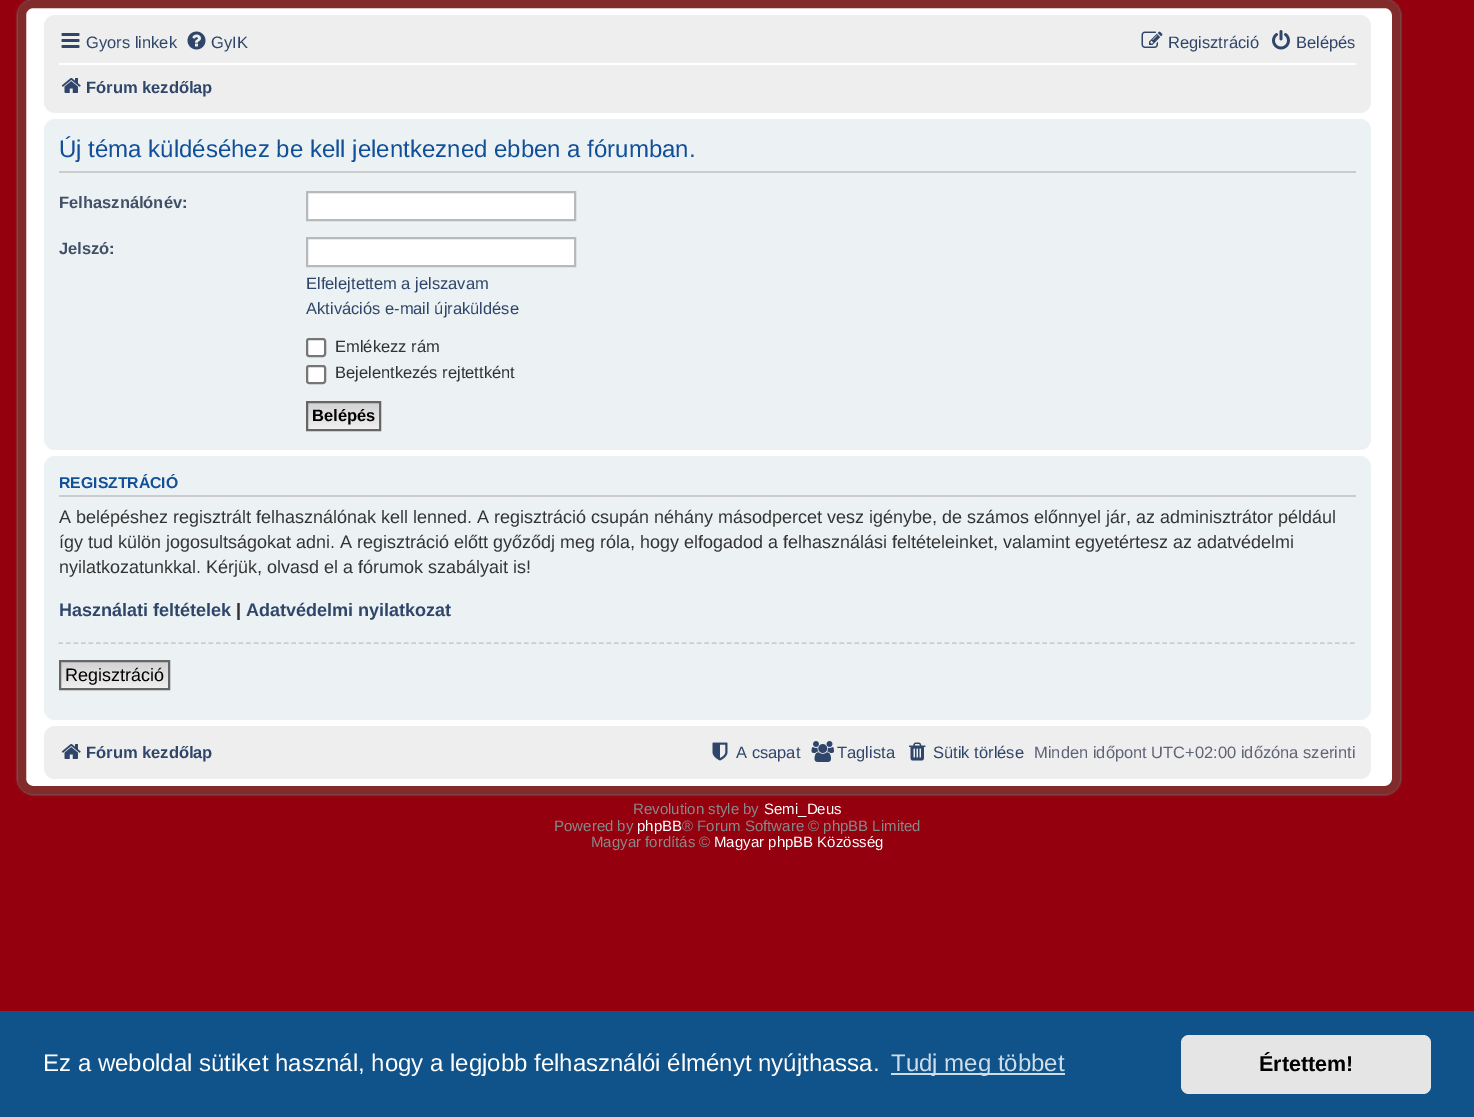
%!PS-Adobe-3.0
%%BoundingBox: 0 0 1474 1117
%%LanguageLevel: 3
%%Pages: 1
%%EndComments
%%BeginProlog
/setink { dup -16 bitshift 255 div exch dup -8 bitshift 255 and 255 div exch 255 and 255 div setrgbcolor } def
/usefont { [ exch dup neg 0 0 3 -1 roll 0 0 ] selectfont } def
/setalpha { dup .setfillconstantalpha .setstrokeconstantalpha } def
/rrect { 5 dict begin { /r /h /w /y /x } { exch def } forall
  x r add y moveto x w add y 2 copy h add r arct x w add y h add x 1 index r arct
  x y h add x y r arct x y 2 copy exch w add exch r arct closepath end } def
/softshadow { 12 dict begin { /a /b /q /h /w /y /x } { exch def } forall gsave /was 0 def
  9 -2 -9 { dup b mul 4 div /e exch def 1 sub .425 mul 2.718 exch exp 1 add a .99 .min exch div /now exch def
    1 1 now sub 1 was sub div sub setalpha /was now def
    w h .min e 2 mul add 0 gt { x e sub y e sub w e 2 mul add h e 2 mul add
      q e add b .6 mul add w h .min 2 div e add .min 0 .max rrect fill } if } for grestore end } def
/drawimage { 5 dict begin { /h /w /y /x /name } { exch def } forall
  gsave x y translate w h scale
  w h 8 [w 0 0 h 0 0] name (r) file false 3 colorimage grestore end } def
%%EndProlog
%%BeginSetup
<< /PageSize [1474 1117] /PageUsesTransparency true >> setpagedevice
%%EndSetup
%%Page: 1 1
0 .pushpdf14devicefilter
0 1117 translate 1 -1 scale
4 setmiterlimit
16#94000D setink
0 0 1474 1117 rectfill
16#6E6E6E setink
17 -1 1384 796 17 1 1 softshadow
16#FFFFFF setink
22 4 1374 786 11 rrect gsave fill grestore
16#812B2B setink
8 setlinewidth
stroke
16#EEEEEE setink
44 15 1327 98 11 rrect fill
(img1.raw) 61 33 19 15 drawimage
/LiberationSans-Regular 16.5 usefont
16#2F466A setink
86 48 moveto (Gyors linkek) show
(img2.raw) 187 31 19 19 drawimage
211 48 moveto (GyIK) show
(img3.raw) 1141 31 22 17 drawimage
1168 48 moveto (Regisztráció) show
(img4.raw) 1272 30 18 20 drawimage
1296 48 moveto (Belépés) show
16#FFFFFF setink
59 63 1297 2 rectfill
(img5.raw) 61 78 20 15 drawimage
/LiberationSans-Bold 16.5 usefont
16#2F466A setink
86 93 moveto (Fórum kezdőlap) show
16#ECF1F3 setink
44 119 1327 331 11 rrect fill
16#CCCCCC setink
59 171 1297 2 rectfill
/LiberationSans-Regular 24 usefont
16#115098 setink
59 157 moveto (Új téma küldéséhez be kell jelentkezned ebben a fórumban.) show
/LiberationSans-Bold 16.5 usefont
16#425067 setink
59 208 moveto (Felhasználónév:) show
16#FFFFFF setink
307 192 moveto 575 192 lineto 575 220 lineto 307 220 lineto closepath gsave fill grestore
16#B7B9BD setink
2 setlinewidth
stroke
16#425067 setink
59 254 moveto (Jelszó:) show
16#FFFFFF setink
307 238 moveto 575 238 lineto 575 266 lineto 307 266 lineto closepath gsave fill grestore
16#B7B9BD setink
stroke
/LiberationSans-Regular 16.5 usefont
16#2F466A setink
306 289 moveto (Elfelejtettem a jelszavam) show
306 314 moveto (Aktivációs e-mail újraküldése) show
16#FFFFFF setink
307 339 18 17 2 rrect gsave fill grestore
16#767676 setink
stroke
16#333333 setink
335 352 moveto (Emlékezz rám) show
16#FFFFFF setink
307 366 18 17 2 rrect gsave fill grestore
16#767676 setink
stroke
16#333333 setink
335 378 moveto (Bejelentkezés rejtettként) show
gsave 308 403 moveto 379 403 lineto 379 429 lineto 308 429 lineto closepath clip newpath
<< /ShadingType 2 /ColorSpace /DeviceRGB /Coords [344 402 344 429] /Extend [true true] /Function << /FunctionType 2 /Domain [0 1] /C0 [0.824 0.824 0.824] /C1 [0.937 0.937 0.937] /N 1 >> >> shfill grestore
16#666666 setink
307 402 73 28 rectstroke
/LiberationSans-Bold 16.5 usefont
16#000000 setink
312 421 moveto (Belépés) show
16#ECF1F3 setink
44 456 1327 264 11 rrect fill
16#CCCCCC setink
59 495 1297 2 rectfill
/LiberationSans-Bold 15.75 usefont
16#115098 setink
59 488 moveto (REGISZTRÁCIÓ) show
/LiberationSans-Regular 18 usefont
16#333333 setink
[
    [(A belépéshez regisztrált felhasználónak kell lenned. A regisztráció csupán néhány másodpercet vesz igénybe, de számos előnnyel jár, az adminisztrátor például) 59 523]
    [(így tud külön jogosultságokat adni. A regisztráció előtt győződj meg róla, hogy elfogadod a felhasználási feltételeinket, valamint egyetértesz az adatvédelmi) 59 548]
    [(nyilatkozatunkkal. Kérjük, olvasd el a fórumok szabályait is!) 59 573]
] { aload pop moveto show } forall
/LiberationSans-Bold 18 usefont
16#2F466A setink
59 616 moveto (Használati feltételek) show
16#333333 setink
236 616 moveto (|) show
16#2F466A setink
246 616 moveto (Adatvédelmi nyilatkozat) show
16#CCCCCC setink
1.5 setlinewidth
[4.5 3.01] 0 setdash
58.5 643 moveto 1356 643 lineto stroke
gsave 61 662 moveto 168 662 lineto 168 688 lineto 61 688 lineto closepath clip newpath
<< /ShadingType 2 /ColorSpace /DeviceRGB /Coords [114 662 114 689] /Extend [true true] /Function << /FunctionType 2 /Domain [0 1] /C0 [0.824 0.824 0.824] /C1 [0.937 0.937 0.937] /N 1 >> >> shfill grestore
16#666666 setink
2 setlinewidth
[] 0 setdash
60 661 109 28 rectstroke
/LiberationSans-Regular 18 usefont
16#000000 setink
65 681 moveto (Regisztráció) show
16#EEEEEE setink
44 726 1327 53 11 rrect fill
(img5.raw) 61 744 20 15 drawimage
/LiberationSans-Bold 16.5 usefont
16#2F466A setink
86 758 moveto (Fórum kezdőlap) show
(img6.raw) 712 742 16 19 drawimage
/LiberationSans-Regular 16.5 usefont
736 758 moveto (A csapat) show
(img7.raw) 811 741 23 21 drawimage
837 758 moveto (Taglista) show
(img8.raw) 909 742 17 19 drawimage
933 758 moveto (Sütik törlése) show
16#5F6476 setink
1034 758 moveto (Minden időpont UTC+02:00 időzóna szerinti) show
/LiberationSans-Regular 15 usefont
16#888888 setink
633 814 moveto (Revolution style by) show
16#FFFFFF setink
764 814 moveto (Semi_Deus) show
16#888888 setink
554 831 moveto (Powered by) show
16#FFFFFF setink
637 831 moveto (phpBB) show
16#888888 setink
682 831 moveto (® Forum Software © phpBB Limited) show
591 847 moveto (Magyar fordítás ©) show
16#FFFFFF setink
714 847 moveto (Magyar phpBB Közösség) show
16#0F538A setink
0 1011 1474 106 rectfill
/LiberationSans-Regular 24 usefont
16#FFFFFF setink
43 1071 moveto (Ez a weboldal sütiket használ, hogy a legjobb felhasználói élményt nyújthassa.) show
16#CFDDE8 setink
891 1073 174 2 rectfill
891 1071 moveto (Tudj meg többet) show
16#E5E5E5 setink
1181 1035 250 59 8 rrect fill
/LiberationSans-Bold 21.5 usefont
16#000000 setink
1259 1071 moveto (Értettem!) show
.poppdf14devicefilter showpage
%%EOF
